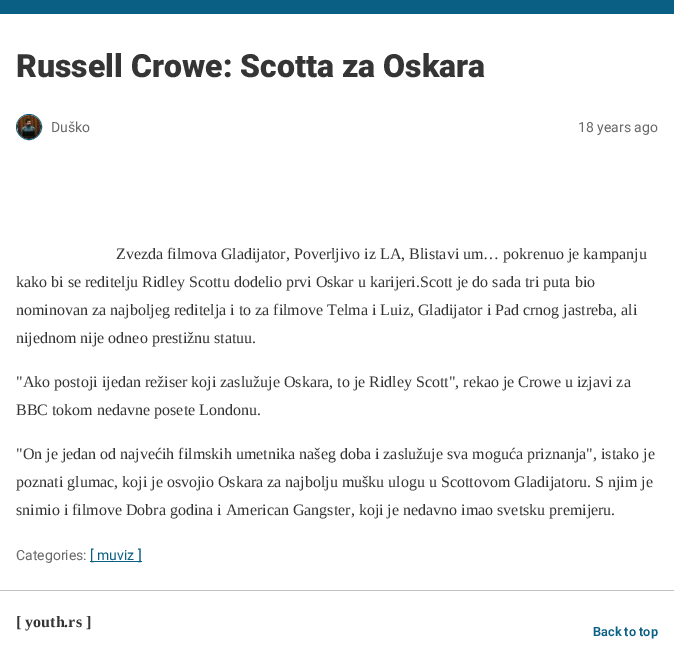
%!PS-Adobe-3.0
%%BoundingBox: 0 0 674 661
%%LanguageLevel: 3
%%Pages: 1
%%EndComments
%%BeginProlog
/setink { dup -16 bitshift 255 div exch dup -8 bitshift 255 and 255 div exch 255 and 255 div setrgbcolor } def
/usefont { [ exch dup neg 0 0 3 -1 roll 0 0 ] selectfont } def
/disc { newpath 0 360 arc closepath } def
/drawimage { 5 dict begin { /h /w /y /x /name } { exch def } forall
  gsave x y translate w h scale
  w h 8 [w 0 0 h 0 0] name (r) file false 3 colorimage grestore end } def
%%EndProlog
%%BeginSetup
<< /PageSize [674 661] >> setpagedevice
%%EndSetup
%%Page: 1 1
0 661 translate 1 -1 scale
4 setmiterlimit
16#FFFFFF setink
0 0 674 661 rectfill
16#0A5F85 setink
0 0 674 14 rectfill
/Roboto-Black 32 usefont
16#353535 setink
16 77 moveto (Russell Crowe: Scotta za Oskara) show
16#0A5F85 setink
29 127 12.5 disc stroke
(img1.raw) 17 115 24 24 drawimage
/Roboto-Regular 14 usefont
16#696969 setink
51 132 moveto (Duško) show
578 132 moveto (18 years ago) show
/LiberationSerif-Regular 16 usefont
16#353535 setink
[
    [(Zvezda filmova Gladijator, Poverljivo iz LA, Blistavi um… pokrenuo je kampanju) 116 259]
    [(kako bi se reditelju Ridley Scottu dodelio prvi Oskar u karijeri.Scott je do sada tri puta bio) 16 287]
    [(nominovan za najboljeg reditelja i to za filmove Telma i Luiz, Gladijator i Pad crnog jastreba, ali) 16 315]
    [(nijednom nije odneo prestižnu statuu.) 16 343]
    [("Ako postoji ijedan režiser koji zaslužuje Oskara, to je Ridley Scott", rekao je Crowe u izjavi za) 16 387]
    [(BBC tokom nedavne posete Londonu.) 16 415]
    [("On je jedan od najvećih filmskih umetnika našeg doba i zaslužuje sva moguća priznanja", istako je) 16 459]
    [(poznati glumac, koji je osvojio Oskara za najbolju mušku ulogu u Scottovom Gladijatoru. S njim je) 16 487]
    [(snimio i filmove Dobra godina i American Gangster, koji je nedavno imao svetsku premijeru.) 16 515]
] { aload pop moveto show } forall
/Roboto-Regular 14 usefont
16#696969 setink
16 560 moveto (Categories:) show
16#0A5F85 setink
90 561 52 1 rectfill
90 560 moveto ([ muviz ]) show
16#C2C2C2 setink
0 590 674 1 rectfill
/LiberationSerif-Bold 16 usefont
16#353535 setink
16 627 moveto ([ youth.rs ]) show
/Roboto-SemiBold 12.75 usefont
16#0A5F85 setink
593 636 moveto (Back to top) show
showpage
%%EOF
